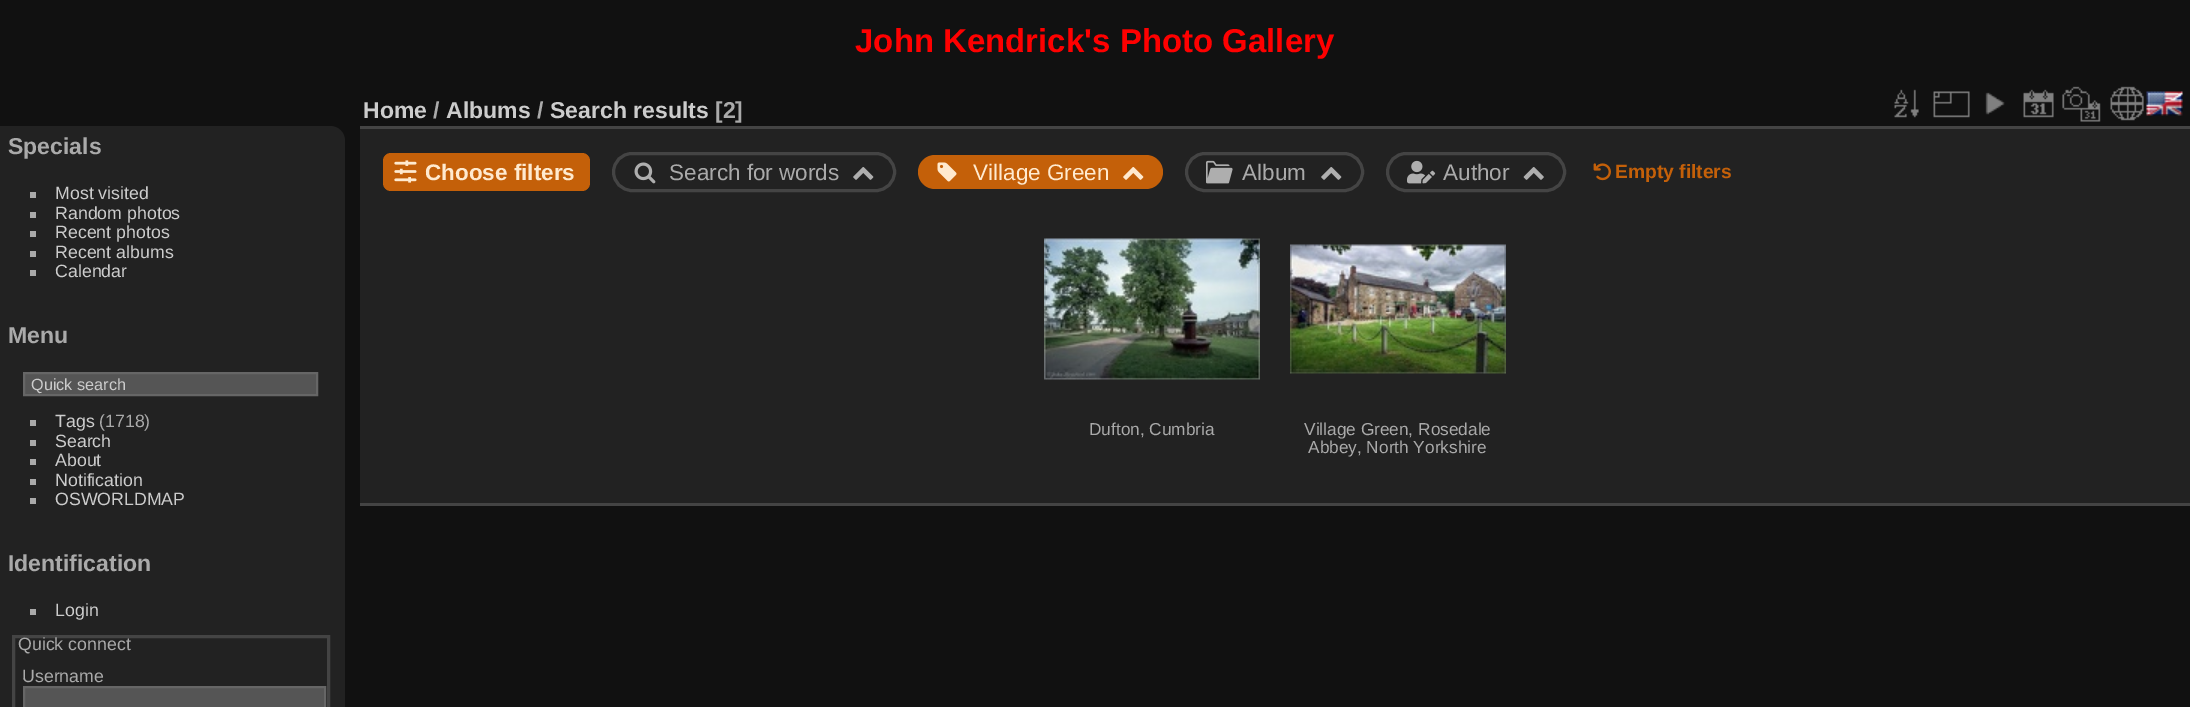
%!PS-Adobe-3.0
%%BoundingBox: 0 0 2190 707
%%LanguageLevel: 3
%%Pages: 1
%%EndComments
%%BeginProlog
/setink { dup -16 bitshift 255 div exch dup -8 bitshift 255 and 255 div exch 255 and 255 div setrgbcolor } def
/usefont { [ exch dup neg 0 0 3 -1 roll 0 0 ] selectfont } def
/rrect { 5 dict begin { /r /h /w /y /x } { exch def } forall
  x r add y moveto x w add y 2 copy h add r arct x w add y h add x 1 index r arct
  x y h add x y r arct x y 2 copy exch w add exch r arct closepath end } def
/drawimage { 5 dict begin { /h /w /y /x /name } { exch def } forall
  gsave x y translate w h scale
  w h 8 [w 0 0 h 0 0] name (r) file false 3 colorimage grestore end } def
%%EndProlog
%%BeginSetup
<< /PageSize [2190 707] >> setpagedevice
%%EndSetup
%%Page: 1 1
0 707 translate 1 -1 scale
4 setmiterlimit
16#111111 setink
0 0 2190 707 rectfill
/LiberationSans-Bold 33 usefont
16#FF0000 setink
855 52 moveto (John Kendrick's Photo Gallery) show
16#222222 setink
0 126 moveto 330 126 lineto 338.5 126 345 132.5 345 141 curveto 345 707 lineto 345 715.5 338.5 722 330 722 curveto 0 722 lineto closepath fill
/LiberationSans-Bold 23 usefont
16#AAAAAA setink
8 154 moveto (Specials) show
30 192 6 6 rectfill
/LiberationSans-Regular 17.75 usefont
16#CCCCCC setink
55 199 moveto (Most visited) show
16#AAAAAA setink
30 212 6 6 rectfill
16#CCCCCC setink
55 219 moveto (Random photos) show
16#AAAAAA setink
30 231 6 6 rectfill
16#CCCCCC setink
55 238 moveto (Recent photos) show
16#AAAAAA setink
30 251 6 6 rectfill
16#CCCCCC setink
55 258 moveto (Recent albums) show
16#AAAAAA setink
30 270 6 6 rectfill
16#CCCCCC setink
55 277 moveto (Calendar) show
/LiberationSans-Bold 23 usefont
16#AAAAAA setink
8 343 moveto (Menu) show
16#555555 setink
24 373 moveto 317 373 lineto 317 395 lineto 24 395 lineto closepath gsave fill grestore
16#666666 setink
2 setlinewidth
stroke
/LiberationSans-Regular 16.25 usefont
16#CCCCCC setink
31 390 moveto (Quick search) show
16#AAAAAA setink
30 420 6 6 rectfill
/LiberationSans-Regular 17.75 usefont
16#CCCCCC setink
55 427 moveto (Tags) show
16#AAAAAA setink
99 427 moveto (\(1718\)) show
30 440 6 6 rectfill
16#CCCCCC setink
55 447 moveto (Search) show
16#AAAAAA setink
30 459 6 6 rectfill
16#CCCCCC setink
55 466 moveto (About) show
16#AAAAAA setink
30 479 6 6 rectfill
16#CCCCCC setink
55 486 moveto (Notification) show
16#AAAAAA setink
30 498 6 6 rectfill
16#CCCCCC setink
55 505 moveto (OSWORLDMAP) show
/LiberationSans-Bold 23 usefont
16#AAAAAA setink
8 571 moveto (Identification) show
30 609 6 6 rectfill
/LiberationSans-Regular 17.75 usefont
16#CCCCCC setink
55 616 moveto (Login) show
16#444444 setink
3 setlinewidth
13.5 636.5 315 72 rectstroke
16#AAAAAA setink
18 650 moveto (Quick connect) show
22 682 moveto (Username) show
16#555555 setink
24 687 moveto 325 687 lineto 325 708 lineto 24 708 lineto closepath gsave fill grestore
16#666666 setink
2 setlinewidth
stroke
[
    [360 129 1830 374 16#222222]
    [360 503 1830 3 16#444444]
    [360 126 1830 3 16#444444]
] { aload pop setink rectfill } forall
/LiberationSans-Bold 23 usefont
16#CCCCCC setink
363 118 moveto (Home) show
16#AAAAAA setink
433 118 moveto (/) show
16#CCCCCC setink
446 118 moveto (Albums) show
16#AAAAAA setink
537 118 moveto (/) show
16#CCCCCC setink
550 118 moveto (Search results) show
16#AAAAAA setink
715 118 moveto ([2]) show
(img1.raw) 1894 89 25 29 drawimage
(img2.raw) 1933 91 37 27 drawimage
(img3.raw) 1985 92 20 23 drawimage
(img4.raw) 2023 89 31 29 drawimage
(img5.raw) 2062 86 39 36 drawimage
(img6.raw) 2110 86 34 35 drawimage
(img7.raw) 2146 91 37 25 drawimage
16#C46009 setink
383 153 207 38 8 rrect fill
(img8.raw) 394 160 23 23 drawimage
/LiberationSans-Bold 22.5 usefont
16#FFEACF setink
425 180 moveto (Choose filters) show
16#444444 setink
3 setlinewidth
613.5 153.5 281 37 18.5 rrect stroke
(img9.raw) 634 162 22 22 drawimage
/LiberationSans-Regular 22.5 usefont
16#AAAAAA setink
669 180 moveto (Search for words) show
(img10.raw) 853 167 21 13 drawimage
16#C46009 setink
918 155 245 34 17 rrect fill
(img11.raw) 937 162 20 20 drawimage
16#FFEACF setink
973 180 moveto (Village Green) show
(img12.raw) 1123 167 21 13 drawimage
16#444444 setink
1186.5 153.5 176 37 18.5 rrect stroke
(img13.raw) 1206 160 27 24 drawimage
16#AAAAAA setink
1242 180 moveto (Album) show
(img10.raw) 1321 167 21 13 drawimage
16#444444 setink
1387.5 153.5 177 37 18.5 rrect stroke
(img14.raw) 1407 160 29 24 drawimage
16#AAAAAA setink
1443 180 moveto (Author) show
(img15.raw) 1523 167 21 13 drawimage
(img16.raw) 1593 163 18 18 drawimage
/LiberationSans-Bold 19.25 usefont
16#C46009 setink
1615 178 moveto (Empty filters) show
(img17.raw) 1044 238 216 142 drawimage
/LiberationSans-Regular 17.25 usefont
16#AAAAAA setink
1089 435 moveto (Dufton, Cumbria) show
(img18.raw) 1290 244 216 130 drawimage
1304 435 moveto (Village Green, Rosedale) show
1308 453 moveto (Abbey, North Yorkshire) show
showpage
%%EOF
